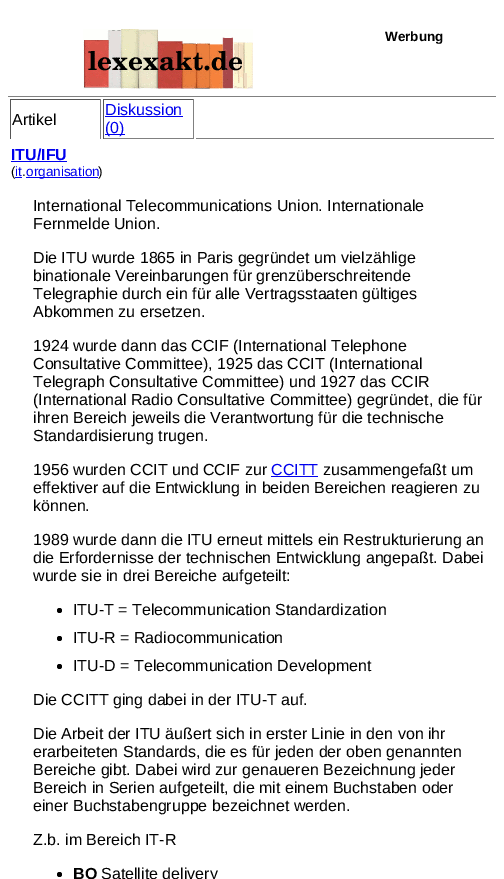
%!PS-Adobe-3.0
%%BoundingBox: 0 0 504 879
%%LanguageLevel: 3
%%Pages: 1
%%EndComments
%%BeginProlog
/setink { dup -16 bitshift 255 div exch dup -8 bitshift 255 and 255 div exch 255 and 255 div setrgbcolor } def
/usefont { [ exch dup neg 0 0 3 -1 roll 0 0 ] selectfont } def
/disc { newpath 0 360 arc closepath } def
/drawimage { 5 dict begin { /h /w /y /x /name } { exch def } forall
  gsave x y translate w h scale
  w h 8 [w 0 0 h 0 0] name (r) file false 3 colorimage grestore end } def
%%EndProlog
%%BeginSetup
<< /PageSize [504 879] >> setpagedevice
%%EndSetup
%%Page: 1 1
0 879 translate 1 -1 scale
4 setmiterlimit
16#FFFFFF setink
0 0 504 879 rectfill
(img1.raw) 83 29 170 60 drawimage
/LiberationSans-Bold 13.5 usefont
16#000000 setink
385 41 moveto (Werbung) show
[
    [8 96 488 1 16#808080]
    [10 99 91 1 16#555555]
    [100 99 1 40 16#808080]
    [10 99 1 40 16#555555]
] { aload pop setink rectfill } forall
/LiberationSans-Regular 16 usefont
16#000000 setink
12 125 moveto (Artikel) show
[
    [103 99 91 1 16#555555]
    [193 99 1 40 16#808080]
    [103 138 91 1 16#808080]
    [103 99 1 40 16#555555]
] { aload pop setink rectfill } forall
16#0000EE setink
105 115 moveto (Diskussion) show
105 116 78 1 rectfill
105 134 20 1 rectfill
105 133 moveto (\(0\)) show
16#808080 setink
196 138 298 1 rectfill
/LiberationSans-Bold 16 usefont
16#0000EE setink
11 160 moveto (ITU/IFU) show
11 161 56 1 rectfill
/LiberationSans-Regular 13.5 usefont
16#000000 setink
11 176 moveto (\() show
16#0000EE setink
15 176 moveto (it) show
16#000000 setink
22 176 moveto (.) show
16#0000EE setink
15 177 7 1 rectfill
26 177 72 1 rectfill
26 176 moveto (organisation) show
16#000000 setink
98 176 moveto (\)) show
/LiberationSans-Regular 16 usefont
[
    [(International Telecommunications Union. Internationale) 33 211]
    [(Fernmelde Union.) 33 229]
    [(Die ITU wurde 1865 in Paris gegründet um vielzählige) 33 263]
    [(binationale Vereinbarungen für grenzüberschreitende) 33 281]
    [(Telegraphie durch ein für alle Vertragsstaaten gültiges) 33 299]
    [(Abkommen zu ersetzen.) 33 317]
    [(1924 wurde dann das CCIF \(International Telephone) 33 351]
    [(Consultative Committee\), 1925 das CCIT \(International) 33 369]
    [(Telegraph Consultative Committee\) und 1927 das CCIR) 33 387]
    [(\(International Radio Consultative Committee\) gegründet, die für) 33 405]
    [(ihren Bereich jeweils die Verantwortung für die technische) 33 423]
    [(Standardisierung trugen.) 33 441]
    [(1956 wurden CCIT und CCIF zur) 33 475]
] { aload pop moveto show } forall
16#0000EE setink
271 475 moveto (CCITT) show
271 476 47 1 rectfill
16#000000 setink
[
    [(zusammengefaßt um) 323 475]
    [(effektiver auf die Entwicklung in beiden Bereichen reagieren zu) 33 493]
    [(können.) 33 511]
    [(1989 wurde dann die ITU erneut mittels ein Restrukturierung an) 33 545]
    [(die Erfordernisse der technischen Entwicklung angepaßt. Dabei) 33 563]
    [(wurde sie in drei Bereiche aufgeteilt:) 33 581]
] { aload pop moveto show } forall
59.5 610.5 2.5 disc fill
73 615 moveto (ITU-T = Telecommunication Standardization) show
59.5 638.5 2.5 disc fill
73 643 moveto (ITU-R = Radiocommunication) show
59.5 666.5 2.5 disc fill
[
    [(ITU-D = Telecommunication Development) 73 671]
    [(Die CCITT ging dabei in der ITU-T auf.) 33 705]
    [(Die Arbeit der ITU äußert sich in erster Linie in den von ihr) 33 739]
    [(erarbeiteten Standards, die es für jeden der oben genannten) 33 757]
    [(Bereiche gibt. Dabei wird zur genaueren Bezeichnung jeder) 33 775]
    [(Bereich in Serien aufgeteilt, die mit einem Buchstaben oder) 33 793]
    [(einer Buchstabengruppe bezeichnet werden.) 33 811]
    [(Z.b. im Bereich IT-R) 33 845]
] { aload pop moveto show } forall
59.5 874.5 2.5 disc fill
/LiberationSans-Bold 16 usefont
73 879 moveto (BO) show
/LiberationSans-Regular 16 usefont
101 879 moveto (Satellite delivery) show
showpage
%%EOF
